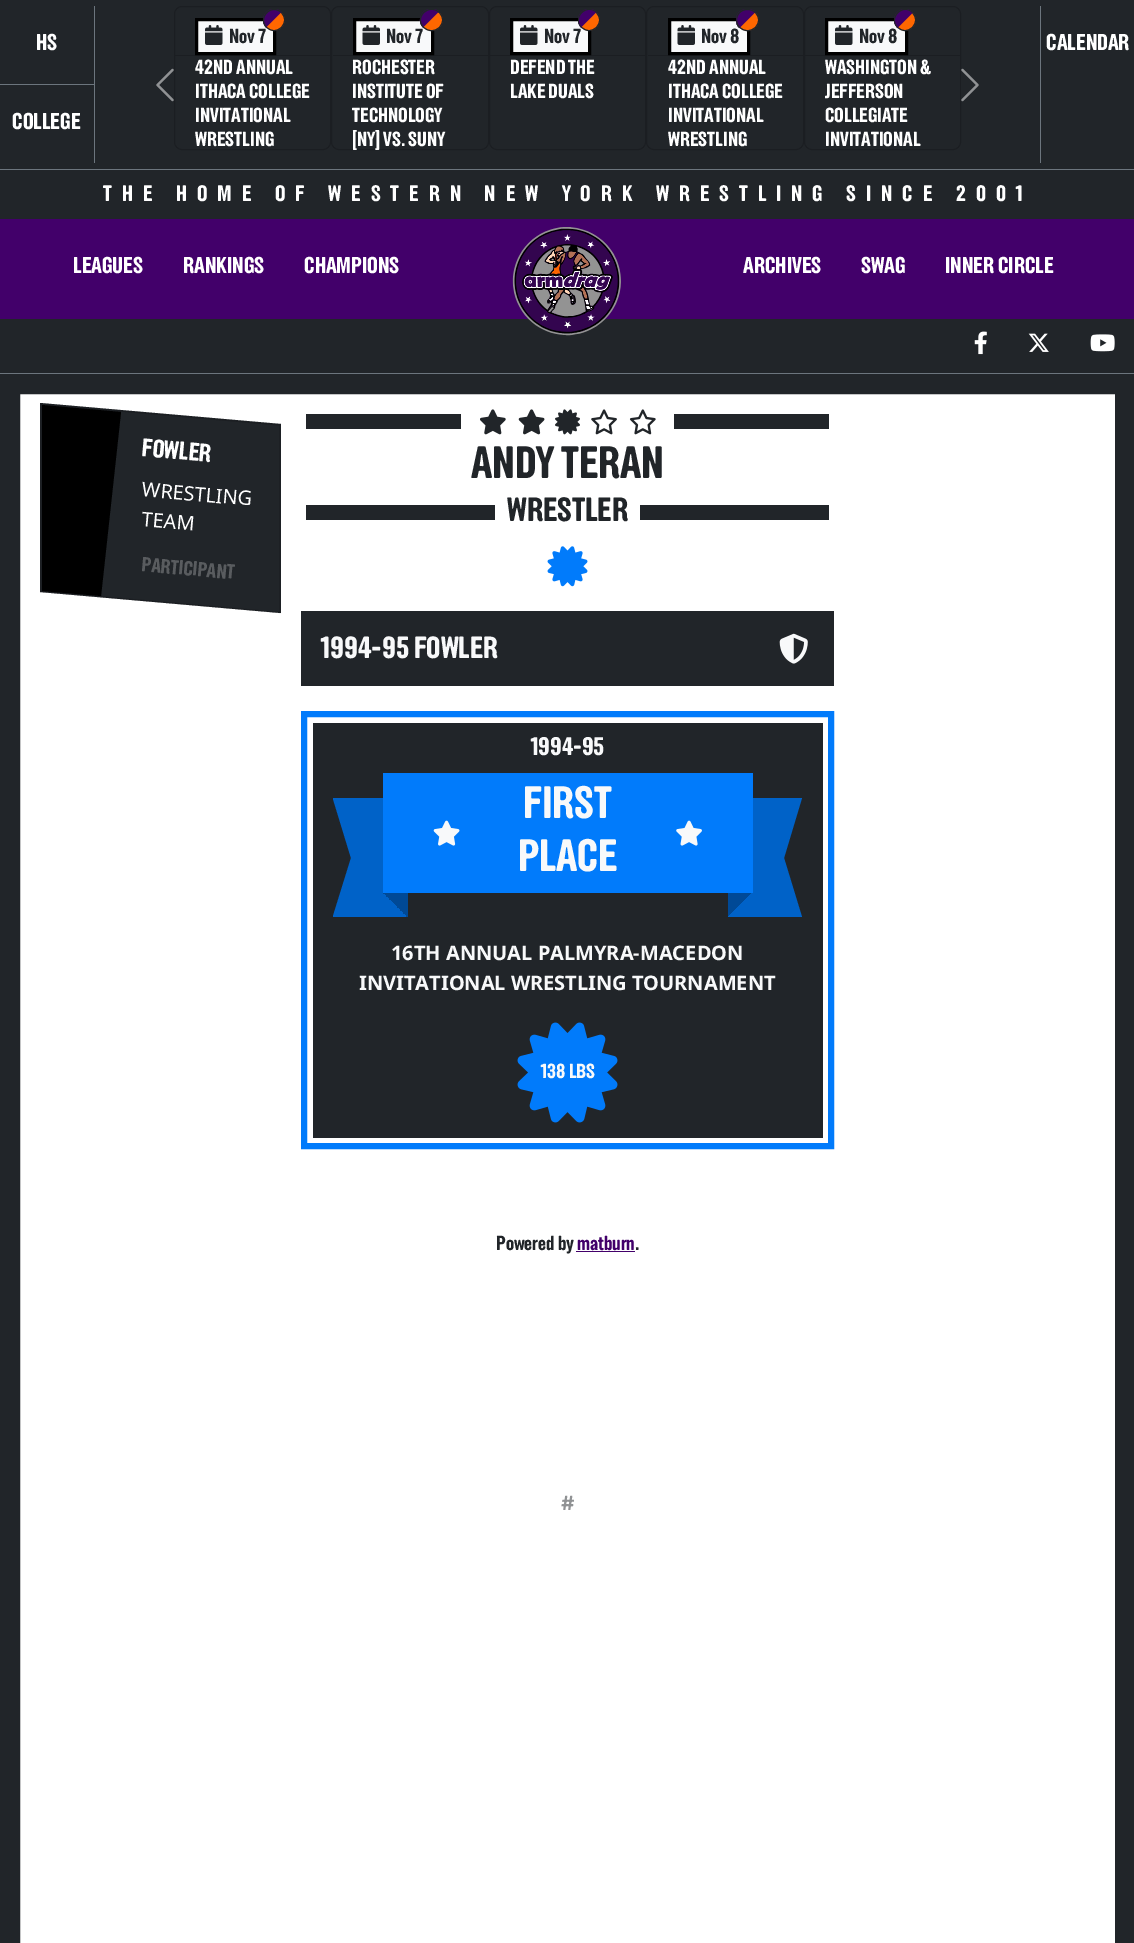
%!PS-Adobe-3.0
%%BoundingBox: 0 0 1134 1943
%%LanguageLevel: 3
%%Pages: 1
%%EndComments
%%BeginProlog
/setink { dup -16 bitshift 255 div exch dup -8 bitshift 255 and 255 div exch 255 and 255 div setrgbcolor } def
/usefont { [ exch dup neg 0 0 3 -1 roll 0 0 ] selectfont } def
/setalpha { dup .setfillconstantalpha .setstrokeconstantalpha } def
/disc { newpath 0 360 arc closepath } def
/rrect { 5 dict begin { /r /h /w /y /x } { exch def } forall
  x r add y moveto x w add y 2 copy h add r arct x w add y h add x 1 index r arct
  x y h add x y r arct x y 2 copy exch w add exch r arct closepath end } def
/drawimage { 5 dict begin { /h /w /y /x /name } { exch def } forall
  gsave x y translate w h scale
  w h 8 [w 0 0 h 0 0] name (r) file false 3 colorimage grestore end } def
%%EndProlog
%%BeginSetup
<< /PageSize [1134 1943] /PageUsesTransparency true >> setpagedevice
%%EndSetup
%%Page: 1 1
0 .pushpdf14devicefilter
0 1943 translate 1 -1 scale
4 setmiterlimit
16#FFFFFF setink
0 0 1134 1943 rectfill
16#212529 setink
0 0 1134 169 rectfill
16#6C757D setink
94 6 1 157 rectfill
/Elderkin-Bold 22.5 usefont
16#FFFFFF setink
36 50 moveto (HS) show
16#6C757D setink
0 84 94 1 rectfill
16#FFFFFF setink
12 129 moveto (COLLEGE) show
(img1.raw) 156 68 18 34 drawimage
16#1B1E22 setink
174.5 6.5 156 143 7.5 rrect stroke
175 55 155 1 rectfill
16#F8F9FA setink
196.5 19.5 moveto 274.5 19.5 lineto 274.5 53.5 lineto 196.5 53.5 lineto closepath gsave fill grestore
16#000000 setink
3 setlinewidth
stroke
/Elderkin-Bold 20 usefont
16#212529 setink
229 43 moveto (Nov 7) show
16#FF6700 setink
274 20 10.5 disc gsave fill grestore
16#212529 setink
1 setlinewidth
stroke
16#42006A setink
274 9 moveto 277 9 279.5 10 281.5 12 curveto 266 27.5 lineto 259.5 20.5 264.5 9 274 9 curveto closepath fill
16#212529 setink
274 9 moveto 264.5 9 259.5 20.5 266 27.5 curveto 266.5 26.5 lineto 258.5 17.5 271.5 4.5 280.5 12.5 curveto 281.5 12 lineto 279.5 10 277 9 274 9 curveto closepath fill
(img2.raw) 205 25 18 20 drawimage
16#FFFFFF setink
[
    [(42ND ANNUAL) 195 74]
    [(ITHACA COLLEGE) 195 98]
    [(INVITATIONAL) 195 122]
    [(WRESTLING) 195 146]
] { aload pop moveto show } forall
16#1B1E22 setink
331.5 6.5 157 143 7.5 rrect stroke
333 55 155 1 rectfill
16#F8F9FA setink
354.5 19.5 moveto 432.5 19.5 lineto 432.5 53.5 lineto 354.5 53.5 lineto closepath gsave fill grestore
16#000000 setink
3 setlinewidth
stroke
16#212529 setink
386 43 moveto (Nov 7) show
16#FF6700 setink
420.5 9.5 22 21 10.5 rrect gsave fill grestore
16#212529 setink
1 setlinewidth
stroke
16#42006A setink
431 9 moveto 434 9 437 9.5 439 11.5 curveto 423 27.5 lineto 416.5 21 421 9 431 9 curveto closepath fill
16#212529 setink
431 9 moveto 421 9 416.5 21 423 27.5 curveto 424 27 lineto 414.5 17.5 429 4 438.5 12.5 curveto 439 11.5 lineto 437 10 434.5 9 432 9 curveto closepath fill
(img3.raw) 362 25 18 20 drawimage
16#FFFFFF setink
[
    [(ROCHESTER) 352 74]
    [(INSTITUTE OF) 352 98]
    [(TECHNOLOGY) 352 122]
    [([NY] VS. SUNY) 352 146]
] { aload pop moveto show } forall
16#1B1E22 setink
489.5 6.5 156 143 7.5 rrect stroke
490 55 155 1 rectfill
16#F8F9FA setink
511.5 19.5 moveto 589.5 19.5 lineto 589.5 53.5 lineto 511.5 53.5 lineto closepath gsave fill grestore
16#000000 setink
3 setlinewidth
stroke
16#212529 setink
544 43 moveto (Nov 7) show
16#FF6700 setink
589 20 10.5 disc gsave fill grestore
16#212529 setink
1 setlinewidth
stroke
16#42006A setink
589 9 moveto 592 9 594.5 10 596.5 12 curveto 581 27.5 lineto 574.5 20.5 579.5 9 589 9 curveto closepath fill
16#212529 setink
589 9 moveto 579.5 9 574.5 20.5 581 27.5 curveto 581.5 27 lineto 573 17.5 586.5 4 596 12.5 curveto 596.5 12 lineto 594.5 10 592 9 589 9 curveto closepath fill
(img2.raw) 520 25 18 20 drawimage
16#FFFFFF setink
510 74 moveto (DEFEND THE) show
510 98 moveto (LAKE DUALS) show
16#1B1E22 setink
646.5 6.5 157 143 7.5 rrect stroke
648 55 155 1 rectfill
16#F8F9FA setink
669.5 19.5 moveto 748.5 19.5 lineto 748.5 53.5 lineto 669.5 53.5 lineto closepath gsave fill grestore
16#000000 setink
3 setlinewidth
stroke
16#212529 setink
701 43 moveto (Nov 8) show
16#FF6700 setink
736.5 9.5 22 21 10.5 rrect gsave fill grestore
16#212529 setink
1 setlinewidth
stroke
16#42006A setink
747 9 moveto 750.5 9 753.5 10 755.5 12 curveto 739.5 28 lineto 738 27 737 25.5 736.5 23.5 curveto 736.5 16.5 lineto 738 12 742 9 747 9 curveto closepath fill
16#212529 setink
747 9 moveto 750.5 9 753.5 10 755.5 12 curveto 755 13 lineto 751 9 744 9 740 13 curveto 736 17 736 23.5 740.5 27.5 curveto 739.5 28 lineto 738 27 737 25.5 736.5 23.5 curveto 736.5 16.5 lineto 738 12 742 9 747 9 curveto closepath fill
(img3.raw) 677 25 18 20 drawimage
16#FFFFFF setink
[
    [(42ND ANNUAL) 668 74]
    [(ITHACA COLLEGE) 668 98]
    [(INVITATIONAL) 668 122]
    [(WRESTLING) 668 146]
] { aload pop moveto show } forall
16#1B1E22 setink
804.5 6.5 156 143 7.5 rrect stroke
805 55 155 1 rectfill
16#F8F9FA setink
826.5 19.5 moveto 906.5 19.5 lineto 906.5 53.5 lineto 826.5 53.5 lineto closepath gsave fill grestore
16#000000 setink
3 setlinewidth
stroke
16#212529 setink
859 43 moveto (Nov 8) show
16#FF6700 setink
905 20 10.5 disc gsave fill grestore
16#212529 setink
1 setlinewidth
stroke
16#42006A setink
905 9 moveto 908 9 911 10.5 913 12.5 curveto 897.5 28 lineto 890.5 21.5 895 9 905 9 curveto closepath fill
16#212529 setink
905 9 moveto 908 9 911 10.5 913 12.5 curveto 912.5 13 lineto 903 3.5 888.5 18 898 27.5 curveto 897.5 28 lineto 890.5 21.5 895 9 905 9 curveto closepath fill
(img2.raw) 835 25 18 20 drawimage
16#FFFFFF setink
[
    [(WASHINGTON &) 825 74]
    [(JEFFERSON) 825 98]
    [(COLLEGIATE) 825 122]
    [(INVITATIONAL) 825 146]
] { aload pop moveto show } forall
(img4.raw) 961 68 18 34 drawimage
16#6C757D setink
1040 6 1 157 rectfill
/Elderkin-Bold 22.5 usefont
16#FFFFFF setink
1046 50 moveto (CALENDAR) show
16#212529 setink
0 170 1134 49 rectfill
16#6C757D setink
0 169 1134 1 rectfill
/Elderkin-Bold 22 usefont
16#FFFFFF setink
103 201 moveto 10 0 (THE HOME OF WESTERN NEW YORK WRESTLING SINCE 2001) ashow
16#42006A setink
0 219 1134 100 rectfill
/Elderkin-Bold 22.5 usefont
16#FFFFFF setink
[
    [(LEAGUES) 73 273]
    [(RANKINGS) 183 273]
    [(CHAMPIONS) 304 273]
] { aload pop moveto show } forall
16#212529 setink
0 319 1134 54 rectfill
(img5.raw) 512 227 109 109 drawimage
16#FFFFFF setink
[
    [(ARCHIVES) 743 273]
    [(SWAG) 861 273]
    [(INNER CIRCLE) 945 273]
] { aload pop moveto show } forall
(img6.raw) 974 331 13 24 drawimage
(img7.raw) 1028 333 21 19 drawimage
(img8.raw) 1090 334 25 18 drawimage
16#6C757D setink
0 373 1134 1 rectfill
16#212529 setink
20 setlinewidth
10 384 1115 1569 rectstroke
40 403 moveto 281 424 lineto 281 613 lineto 40 592 lineto closepath fill
0.18 setalpha
16#000000 setink
1.2 setlinewidth
41 404 moveto 280 425 lineto 280 612.5 lineto 41 591.5 lineto closepath stroke
1 setalpha
42 405 moveto 42 591 lineto 101 596 lineto 121 412 lineto closepath fill
/Elderkin-Bold 25 usefont
16#FFFFFF setink
gsave 141 456 translate 5 rotate 0 0 moveto (FOWLER) show grestore
/NotoSans-Regular 20 usefont
gsave 141 496 translate 5 rotate 0 0 moveto (WRESTLING) show grestore
gsave 141 526 translate 5 rotate 0 0 moveto (TEAM) show grestore
/Elderkin-Bold 20 usefont
16#595C5F setink
gsave 141 571 translate 5 rotate 0 0 moveto (PARTICIPANT) show grestore
16#212529 setink
306 414 155 15 rectfill
(img9.raw) 480 409 26 26 drawimage
(img10.raw) 518 409 27 26 drawimage
(img11.raw) 555 409 25 26 drawimage
(img12.raw) 591 409 26 26 drawimage
(img13.raw) 629 409 27 26 drawimage
674 414 155 15 rectfill
/Elderkin-Bold 44.5 usefont
471 478 moveto (ANDY TERAN) show
306 505 189 15 rectfill
/Elderkin-Bold 33 usefont
507 521 moveto (WRESTLER) show
640 505 189 15 rectfill
(img14.raw) 547 546 41 41 drawimage
301 611 533 75 rectfill
/Elderkin-Bold 30 usefont
16#F8F9FA setink
321 658 moveto (1994-95 FOWLER) show
(img15.raw) 779 633 29 31 drawimage
16#017BFB setink
6 setlinewidth
304 714 527 432 rectstroke
16#212529 setink
313 723 510 415 rectfill
/Elderkin-Bold 25 usefont
16#F8F9FA setink
531 755 moveto (1994-95) show
16#0062C8 setink
333 798 moveto 408 798 lineto 408 917 lineto 333 917 lineto 333 916 lineto 351 858 lineto 333 799 lineto closepath fill
728 798 moveto 728 917 lineto 802 917 lineto 784 858 lineto 802 798 lineto closepath fill
16#017BFB setink
383 773 370 120 rectfill
gsave 383 893 moveto 408 893 lineto 408 917 lineto 383 917 lineto closepath clip newpath
<< /ShadingType 2 /ColorSpace /DeviceRGB /Coords [383 918 408 893] /Extend [true true] /Function << /FunctionType 3 /Domain [0 1] /Functions [<< /FunctionType 2 /Domain [0 1] /C0 [0 0.384 0.784] /C1 [0 0.384 0.784] /N 1 >> << /FunctionType 2 /Domain [0 1] /C0 [0 0.286 0.588] /C1 [0 0.286 0.588] /N 1 >>] /Bounds [0.5] /Encode [0 1 0 1] >> >> shfill grestore
(img16.raw) 433 820 27 26 drawimage
/Elderkin-Bold 44.5 usefont
16#F8F9FA setink
523 818 moveto (FIRST) show
518 871 moveto (PLACE) show
(img17.raw) 676 820 26 26 drawimage
gsave 728 893 moveto 752 893 lineto 752 917 lineto 728 917 lineto closepath clip newpath
<< /ShadingType 2 /ColorSpace /DeviceRGB /Coords [753 917 728 892] /Extend [true true] /Function << /FunctionType 3 /Domain [0 1] /Functions [<< /FunctionType 2 /Domain [0 1] /C0 [0 0.384 0.784] /C1 [0 0.384 0.784] /N 1 >> << /FunctionType 2 /Domain [0 1] /C0 [0 0.286 0.588] /C1 [0 0.286 0.588] /N 1 >>] /Bounds [0.5] /Encode [0 1 0 1] >> >> shfill grestore
/NotoSans-Bold 20 usefont
391 960 moveto (16TH ANNUAL PALMYRA-MACEDON) show
359 990 moveto (INVITATIONAL WRESTLING TOURNAMENT) show
(img18.raw) 517 1022 101 101 drawimage
/Elderkin-Bold 20 usefont
541 1078 moveto (138 LBS) show
16#212529 setink
496 1250 moveto (Powered by) show
16#42006A setink
577 1250 moveto (matburn) show
576 1251 59 1 rectfill
16#212529 setink
635 1250 moveto (.) show
16#909294 setink
561 1510 moveto (#) show
.poppdf14devicefilter showpage
%%EOF
